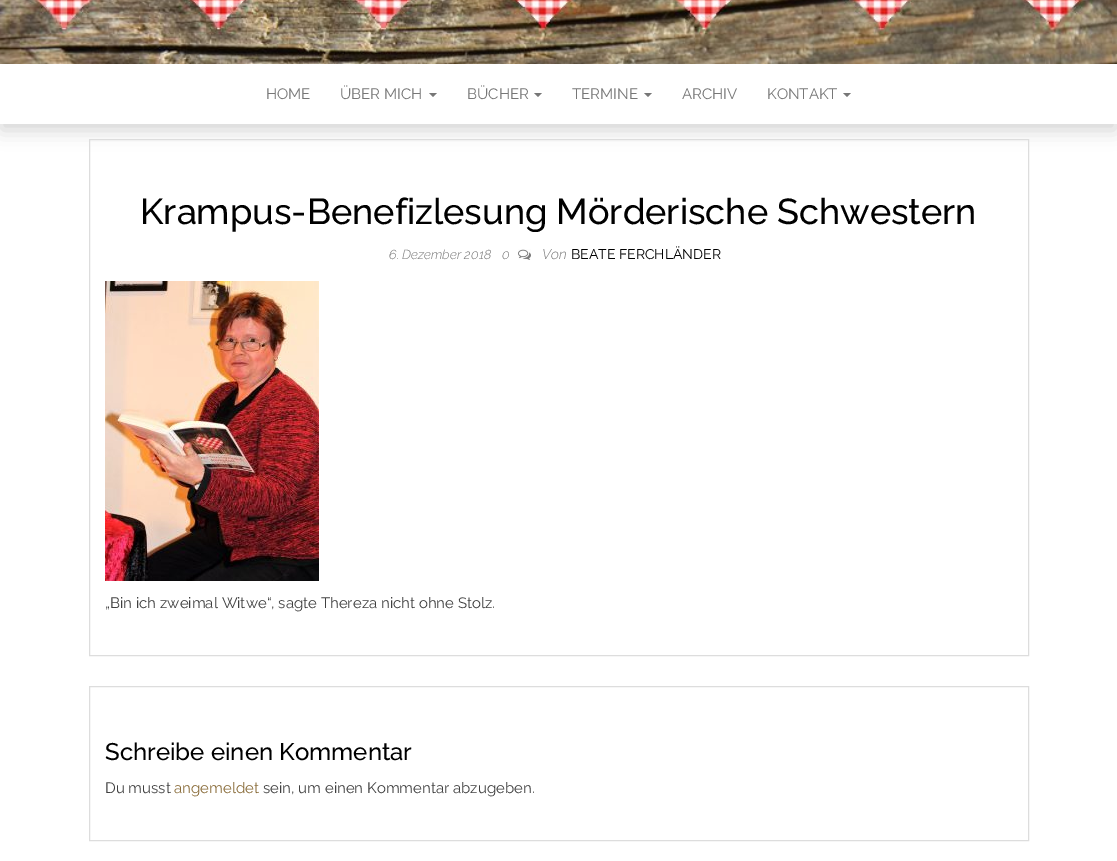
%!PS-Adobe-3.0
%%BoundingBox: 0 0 1117 861
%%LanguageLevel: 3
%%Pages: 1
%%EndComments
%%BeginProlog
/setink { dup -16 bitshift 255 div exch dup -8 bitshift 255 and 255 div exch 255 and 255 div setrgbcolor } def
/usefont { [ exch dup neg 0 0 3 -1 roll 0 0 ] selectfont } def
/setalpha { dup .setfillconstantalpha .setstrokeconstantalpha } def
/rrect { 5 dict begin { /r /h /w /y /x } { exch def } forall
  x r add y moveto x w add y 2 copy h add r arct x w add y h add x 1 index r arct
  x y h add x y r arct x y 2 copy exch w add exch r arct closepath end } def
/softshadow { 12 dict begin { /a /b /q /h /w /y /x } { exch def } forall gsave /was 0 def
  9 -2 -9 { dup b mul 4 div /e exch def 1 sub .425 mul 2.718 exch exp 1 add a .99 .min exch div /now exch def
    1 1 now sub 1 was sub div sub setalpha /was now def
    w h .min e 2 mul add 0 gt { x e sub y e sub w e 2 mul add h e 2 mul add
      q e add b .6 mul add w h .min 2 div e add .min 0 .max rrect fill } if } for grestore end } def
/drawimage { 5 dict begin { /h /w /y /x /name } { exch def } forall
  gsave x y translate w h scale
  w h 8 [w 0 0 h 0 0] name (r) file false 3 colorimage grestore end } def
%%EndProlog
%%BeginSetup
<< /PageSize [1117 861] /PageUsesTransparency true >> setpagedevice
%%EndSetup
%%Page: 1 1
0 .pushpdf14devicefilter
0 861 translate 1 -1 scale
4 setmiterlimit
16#FFFFFF setink
0 0 1117 861 rectfill
(img1.raw) 0 0 1117 64 drawimage
gsave
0 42 moveto 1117 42 lineto 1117 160 lineto 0 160 lineto closepath 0 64 moveto 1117 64 lineto 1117 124 lineto 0 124 lineto closepath eoclip newpath
16#000000 setink
1 72 1115 58 0 9.5 0.17 softshadow
grestore
/Raleway-Regular 15 usefont
16#777777 setink
266 99 moveto (HOME) show
340 99 moveto (ÜBER MICH) show
429 93 moveto 437 93 lineto 433 97 lineto closepath fill
467 99 moveto (BÜCHER) show
534 93 moveto 542 93 lineto 538 97 lineto closepath fill
572 99 moveto (TERMINE) show
644 93 moveto 652 93 lineto 648 97 lineto closepath fill
682 99 moveto (ARCHIV) show
767 99 moveto (KONTAKT) show
843 93 moveto 851 93 lineto 847 97 lineto closepath fill
16#DDDDDD setink
89.5 139.5 939 516 rectstroke
/Raleway-Medium 36 usefont
16#000000 setink
140 224 moveto (Krampus-Benefizlesung Mörderische Schwestern) show
/Raleway-LightItalic 13 usefont
16#777777 setink
389 259 moveto (6. Dezember 2018) show
502 259 moveto (0) show
(img2.raw) 518 249 13 11 drawimage
/Raleway-LightItalic 14 usefont
542 259 moveto (Von) show
/Raleway-Regular 14 usefont
16#000000 setink
571 259 moveto (BEATE FERCHLÄNDER) show
(img3.raw) 105 281 214 300 drawimage
/Raleway-Regular 15 usefont
16#404040 setink
105 608 moveto („Bin ich zweimal Witwe“, sagte Thereza nicht ohne Stolz.) show
16#DDDDDD setink
89.5 686.5 939 154 rectstroke
/Raleway-Medium 24 usefont
16#000000 setink
105 760 moveto (Schreibe einen Kommentar) show
/Raleway-Regular 15 usefont
16#404040 setink
105 793 moveto (Du musst) show
16#8A6D3B setink
174 793 moveto (angemeldet) show
16#404040 setink
263 793 moveto (sein, um einen Kommentar abzugeben.) show
.poppdf14devicefilter showpage
%%EOF
